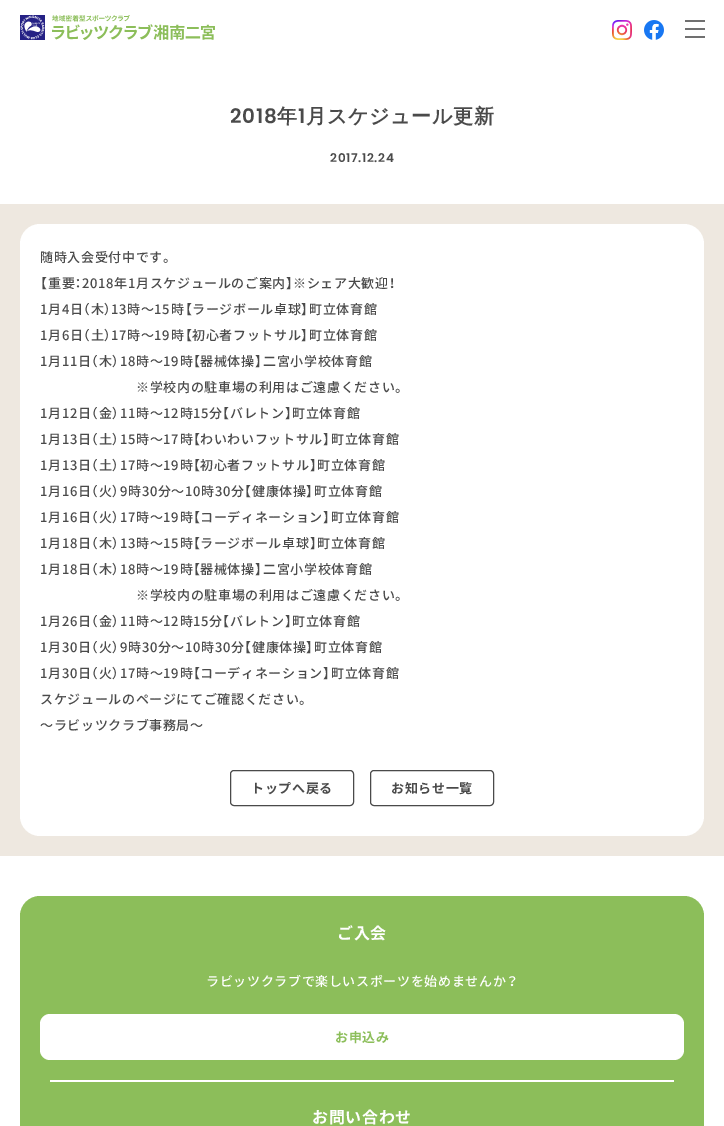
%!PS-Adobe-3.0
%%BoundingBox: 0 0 724 1126
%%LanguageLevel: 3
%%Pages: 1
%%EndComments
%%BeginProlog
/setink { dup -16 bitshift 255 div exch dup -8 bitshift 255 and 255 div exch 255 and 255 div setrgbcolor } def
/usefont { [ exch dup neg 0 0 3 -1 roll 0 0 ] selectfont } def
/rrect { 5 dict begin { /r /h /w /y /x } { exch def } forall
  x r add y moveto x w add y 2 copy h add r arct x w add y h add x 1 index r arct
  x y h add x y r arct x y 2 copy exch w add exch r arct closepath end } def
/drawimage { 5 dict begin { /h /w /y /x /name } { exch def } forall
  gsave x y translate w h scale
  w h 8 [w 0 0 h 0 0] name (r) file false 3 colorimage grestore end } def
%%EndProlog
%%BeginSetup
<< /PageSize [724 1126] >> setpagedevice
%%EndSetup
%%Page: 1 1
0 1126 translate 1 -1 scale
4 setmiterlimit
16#FFFFFF setink
0 0 724 1126 rectfill
(img1.raw) 20 15 195 25 drawimage
(img2.raw) 612 20 20 20 drawimage
(img3.raw) 644 20 20 20 drawimage
[
    [685 20 20 2 16#707070]
    [685 28 20 2 16#707070]
    [685 36 20 2 16#707070]
] { aload pop setink rectfill } forall
/Poppins-SemiBold 20 usefont
16#4A4A4A setink
230 123 moveto 0.65 0 (2018) ashow
/WenQuanYiZenHei-Bold 20 usefont
277 123 moveto 0.65 0 (年) ashow
/Poppins-SemiBold 20 usefont
298 123 moveto 0.65 0 (1) ashow
/WenQuanYiZenHei-Bold 20 usefont
306 123 moveto 0.65 0 (月スケジュール更新) ashow
/Poppins-SemiBold 12 usefont
330 162 moveto 0.65 0 (2017.12.24) ashow
16#EEE8E0 setink
0 204 724 652 rectfill
16#FFFFFF setink
20 224 684 612 20 rrect fill
/NotoSansJP-Medium 13 usefont
16#4A4A4A setink
40 262 moveto 0.65 0 (随時入会受付中です) ashow
/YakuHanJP-Medium 13 usefont
163 262 moveto 0.65 0 (。) ashow
40 288 moveto 0.65 0 (【) ashow
/NotoSansJP-Medium 13 usefont
48 288 moveto 0.65 0 (重要) ashow
/YakuHanJP-Medium 13 usefont
75 288 moveto 0.65 0 (：) ashow
/NotoSansJP-Medium 13 usefont
82 288 moveto 0.65 0 (2018年1月スケジュールのご案内) ashow
/YakuHanJP-Medium 13 usefont
286 288 moveto 0.65 0 (】) ashow
/NotoSansJP-Medium 13 usefont
293 288 moveto 0.65 0 (※シェア大歓迎) ashow
/YakuHanJP-Medium 13 usefont
389 288 moveto 0.65 0 (！) ashow
/NotoSansJP-Medium 13 usefont
40 314 moveto 0.65 0 (1月4日) ashow
/YakuHanJP-Medium 13 usefont
83 314 moveto 0.65 0 (（) ashow
/NotoSansJP-Medium 13 usefont
91 314 moveto 0.65 0 (木) ashow
/YakuHanJP-Medium 13 usefont
104 314 moveto 0.65 0 (）) ashow
/NotoSansJP-Medium 13 usefont
111 314 moveto 0.65 0 (13時〜15時) ashow
/YakuHanJP-Medium 13 usefont
185 314 moveto 0.65 0 (【) ashow
/NotoSansJP-Medium 13 usefont
192 314 moveto 0.65 0 (ラージボール卓球) ashow
/YakuHanJP-Medium 13 usefont
301 314 moveto 0.65 0 (】) ashow
/NotoSansJP-Medium 13 usefont
309 314 moveto 0.65 0 (町立体育館) ashow
40 340 moveto 0.65 0 (1月6日) ashow
/YakuHanJP-Medium 13 usefont
83 340 moveto 0.65 0 (（) ashow
/NotoSansJP-Medium 13 usefont
91 340 moveto 0.65 0 (土) ashow
/YakuHanJP-Medium 13 usefont
104 340 moveto 0.65 0 (）) ashow
/NotoSansJP-Medium 13 usefont
111 340 moveto 0.65 0 (17時〜19時) ashow
/YakuHanJP-Medium 13 usefont
185 340 moveto 0.65 0 (【) ashow
/NotoSansJP-Medium 13 usefont
192 340 moveto 0.65 0 (初心者フットサル) ashow
/YakuHanJP-Medium 13 usefont
301 340 moveto 0.65 0 (】) ashow
/NotoSansJP-Medium 13 usefont
309 340 moveto 0.65 0 (町立体育館) ashow
40 366 moveto 0.65 0 (1月11日) ashow
/YakuHanJP-Medium 13 usefont
91 366 moveto 0.65 0 (（) ashow
/NotoSansJP-Medium 13 usefont
99 366 moveto 0.65 0 (木) ashow
/YakuHanJP-Medium 13 usefont
112 366 moveto 0.65 0 (）) ashow
/NotoSansJP-Medium 13 usefont
120 366 moveto 0.65 0 (18時〜19時) ashow
/YakuHanJP-Medium 13 usefont
193 366 moveto 0.65 0 (【) ashow
/NotoSansJP-Medium 13 usefont
200 366 moveto 0.65 0 (器械体操) ashow
/YakuHanJP-Medium 13 usefont
255 366 moveto 0.65 0 (】) ashow
/NotoSansJP-Medium 13 usefont
263 366 moveto 0.65 0 (二宮小学校体育館) ashow
136 392 moveto 0.65 0 (※学校内の駐車場の利用はご遠慮ください) ashow
/YakuHanJP-Medium 13 usefont
395 392 moveto 0.65 0 (。) ashow
/NotoSansJP-Medium 13 usefont
40 418 moveto 0.65 0 (1月12日) ashow
/YakuHanJP-Medium 13 usefont
91 418 moveto 0.65 0 (（) ashow
/NotoSansJP-Medium 13 usefont
99 418 moveto 0.65 0 (金) ashow
/YakuHanJP-Medium 13 usefont
112 418 moveto 0.65 0 (）) ashow
/NotoSansJP-Medium 13 usefont
120 418 moveto 0.65 0 (11時〜12時15分) ashow
/YakuHanJP-Medium 13 usefont
222 418 moveto 0.65 0 (【) ashow
/NotoSansJP-Medium 13 usefont
230 418 moveto 0.65 0 (バレトン) ashow
/YakuHanJP-Medium 13 usefont
285 418 moveto 0.65 0 (】) ashow
/NotoSansJP-Medium 13 usefont
292 418 moveto 0.65 0 (町立体育館) ashow
40 444 moveto 0.65 0 (1月13日) ashow
/YakuHanJP-Medium 13 usefont
91 444 moveto 0.65 0 (（) ashow
/NotoSansJP-Medium 13 usefont
99 444 moveto 0.65 0 (土) ashow
/YakuHanJP-Medium 13 usefont
112 444 moveto 0.65 0 (）) ashow
/NotoSansJP-Medium 13 usefont
120 444 moveto 0.65 0 (15時〜17時) ashow
/YakuHanJP-Medium 13 usefont
193 444 moveto 0.65 0 (【) ashow
/NotoSansJP-Medium 13 usefont
200 444 moveto 0.65 0 (わいわいフットサル) ashow
/YakuHanJP-Medium 13 usefont
323 444 moveto 0.65 0 (】) ashow
/NotoSansJP-Medium 13 usefont
331 444 moveto 0.65 0 (町立体育館) ashow
40 470 moveto 0.65 0 (1月13日) ashow
/YakuHanJP-Medium 13 usefont
91 470 moveto 0.65 0 (（) ashow
/NotoSansJP-Medium 13 usefont
99 470 moveto 0.65 0 (土) ashow
/YakuHanJP-Medium 13 usefont
112 470 moveto 0.65 0 (）) ashow
/NotoSansJP-Medium 13 usefont
120 470 moveto 0.65 0 (17時〜19時) ashow
/YakuHanJP-Medium 13 usefont
193 470 moveto 0.65 0 (【) ashow
/NotoSansJP-Medium 13 usefont
200 470 moveto 0.65 0 (初心者フットサル) ashow
/YakuHanJP-Medium 13 usefont
310 470 moveto 0.65 0 (】) ashow
/NotoSansJP-Medium 13 usefont
317 470 moveto 0.65 0 (町立体育館) ashow
40 496 moveto 0.65 0 (1月16日) ashow
/YakuHanJP-Medium 13 usefont
91 496 moveto 0.65 0 (（) ashow
/NotoSansJP-Medium 13 usefont
99 496 moveto 0.65 0 (火) ashow
/YakuHanJP-Medium 13 usefont
112 496 moveto 0.65 0 (）) ashow
/NotoSansJP-Medium 13 usefont
120 496 moveto 0.65 0 (9時30分〜10時30分) ashow
/YakuHanJP-Medium 13 usefont
244 496 moveto 0.65 0 (【) ashow
/NotoSansJP-Medium 13 usefont
252 496 moveto 0.65 0 (健康体操) ashow
/YakuHanJP-Medium 13 usefont
306 496 moveto 0.65 0 (】) ashow
/NotoSansJP-Medium 13 usefont
314 496 moveto 0.65 0 (町立体育館) ashow
40 522 moveto 0.65 0 (1月16日) ashow
/YakuHanJP-Medium 13 usefont
91 522 moveto 0.65 0 (（) ashow
/NotoSansJP-Medium 13 usefont
99 522 moveto 0.65 0 (火) ashow
/YakuHanJP-Medium 13 usefont
112 522 moveto 0.65 0 (）) ashow
/NotoSansJP-Medium 13 usefont
120 522 moveto 0.65 0 (17時〜19時) ashow
/YakuHanJP-Medium 13 usefont
193 522 moveto 0.65 0 (【) ashow
/NotoSansJP-Medium 13 usefont
200 522 moveto 0.65 0 (コーディネーション) ashow
/YakuHanJP-Medium 13 usefont
323 522 moveto 0.65 0 (】) ashow
/NotoSansJP-Medium 13 usefont
331 522 moveto 0.65 0 (町立体育館) ashow
40 548 moveto 0.65 0 (1月18日) ashow
/YakuHanJP-Medium 13 usefont
91 548 moveto 0.65 0 (（) ashow
/NotoSansJP-Medium 13 usefont
99 548 moveto 0.65 0 (木) ashow
/YakuHanJP-Medium 13 usefont
112 548 moveto 0.65 0 (）) ashow
/NotoSansJP-Medium 13 usefont
120 548 moveto 0.65 0 (13時〜15時) ashow
/YakuHanJP-Medium 13 usefont
193 548 moveto 0.65 0 (【) ashow
/NotoSansJP-Medium 13 usefont
200 548 moveto 0.65 0 (ラージボール卓球) ashow
/YakuHanJP-Medium 13 usefont
310 548 moveto 0.65 0 (】) ashow
/NotoSansJP-Medium 13 usefont
317 548 moveto 0.65 0 (町立体育館) ashow
40 574 moveto 0.65 0 (1月18日) ashow
/YakuHanJP-Medium 13 usefont
91 574 moveto 0.65 0 (（) ashow
/NotoSansJP-Medium 13 usefont
99 574 moveto 0.65 0 (木) ashow
/YakuHanJP-Medium 13 usefont
112 574 moveto 0.65 0 (）) ashow
/NotoSansJP-Medium 13 usefont
120 574 moveto 0.65 0 (18時〜19時) ashow
/YakuHanJP-Medium 13 usefont
193 574 moveto 0.65 0 (【) ashow
/NotoSansJP-Medium 13 usefont
200 574 moveto 0.65 0 (器械体操) ashow
/YakuHanJP-Medium 13 usefont
255 574 moveto 0.65 0 (】) ashow
/NotoSansJP-Medium 13 usefont
263 574 moveto 0.65 0 (二宮小学校体育館) ashow
136 600 moveto 0.65 0 (※学校内の駐車場の利用はご遠慮ください) ashow
/YakuHanJP-Medium 13 usefont
395 600 moveto 0.65 0 (。) ashow
/NotoSansJP-Medium 13 usefont
40 626 moveto 0.65 0 (1月26日) ashow
/YakuHanJP-Medium 13 usefont
91 626 moveto 0.65 0 (（) ashow
/NotoSansJP-Medium 13 usefont
99 626 moveto 0.65 0 (金) ashow
/YakuHanJP-Medium 13 usefont
112 626 moveto 0.65 0 (）) ashow
/NotoSansJP-Medium 13 usefont
120 626 moveto 0.65 0 (11時〜12時15分) ashow
/YakuHanJP-Medium 13 usefont
222 626 moveto 0.65 0 (【) ashow
/NotoSansJP-Medium 13 usefont
230 626 moveto 0.65 0 (バレトン) ashow
/YakuHanJP-Medium 13 usefont
285 626 moveto 0.65 0 (】) ashow
/NotoSansJP-Medium 13 usefont
292 626 moveto 0.65 0 (町立体育館) ashow
40 652 moveto 0.65 0 (1月30日) ashow
/YakuHanJP-Medium 13 usefont
91 652 moveto 0.65 0 (（) ashow
/NotoSansJP-Medium 13 usefont
99 652 moveto 0.65 0 (火) ashow
/YakuHanJP-Medium 13 usefont
112 652 moveto 0.65 0 (）) ashow
/NotoSansJP-Medium 13 usefont
120 652 moveto 0.65 0 (9時30分〜10時30分) ashow
/YakuHanJP-Medium 13 usefont
244 652 moveto 0.65 0 (【) ashow
/NotoSansJP-Medium 13 usefont
252 652 moveto 0.65 0 (健康体操) ashow
/YakuHanJP-Medium 13 usefont
306 652 moveto 0.65 0 (】) ashow
/NotoSansJP-Medium 13 usefont
314 652 moveto 0.65 0 (町立体育館) ashow
40 678 moveto 0.65 0 (1月30日) ashow
/YakuHanJP-Medium 13 usefont
91 678 moveto 0.65 0 (（) ashow
/NotoSansJP-Medium 13 usefont
99 678 moveto 0.65 0 (火) ashow
/YakuHanJP-Medium 13 usefont
112 678 moveto 0.65 0 (）) ashow
/NotoSansJP-Medium 13 usefont
120 678 moveto 0.65 0 (17時〜19時) ashow
/YakuHanJP-Medium 13 usefont
193 678 moveto 0.65 0 (【) ashow
/NotoSansJP-Medium 13 usefont
200 678 moveto 0.65 0 (コーディネーション) ashow
/YakuHanJP-Medium 13 usefont
323 678 moveto 0.65 0 (】) ashow
/NotoSansJP-Medium 13 usefont
331 678 moveto 0.65 0 (町立体育館) ashow
40 704 moveto 0.65 0 (スケジュールのページにてご確認ください) ashow
/YakuHanJP-Medium 13 usefont
299 704 moveto 0.65 0 (。) ashow
/NotoSansJP-Medium 13 usefont
40 730 moveto 0.65 0 (〜ラビッツクラブ事務局〜) ashow
230.5 770.5 123 35 3.5 rrect stroke
/NotoSansJP-Bold 13 usefont
251 793 moveto 0.65 0 (トップへ戻る) ashow
370.5 770.5 123 35 3.5 rrect stroke
391 793 moveto 0.65 0 (お知らせ一覧) ashow
16#8CBE5A setink
20 896 684 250 20 rrect fill
/NotoSansJP-Bold 16 usefont
16#FFFFFF setink
337 939 moveto 0.65 0 (ご入会) ashow
/NotoSansJP-Medium 13 usefont
206 986 moveto 0.65 0 (ラビッツクラブで楽しいスポーツを始めませんか) ashow
/YakuHanJP-Medium 13 usefont
507 986 moveto 0.65 0 (？) ashow
40 1014 644 46 10 rrect fill
/NotoSansJP-Bold 13 usefont
16#8CBE5A setink
335 1042 moveto 0.65 0 (お申込み) ashow
16#FFFFFF setink
50 1080 624 2 rectfill
/NotoSansJP-Bold 16 usefont
312 1123 moveto 0.65 0 (お問い合わせ) ashow
showpage
%%EOF
